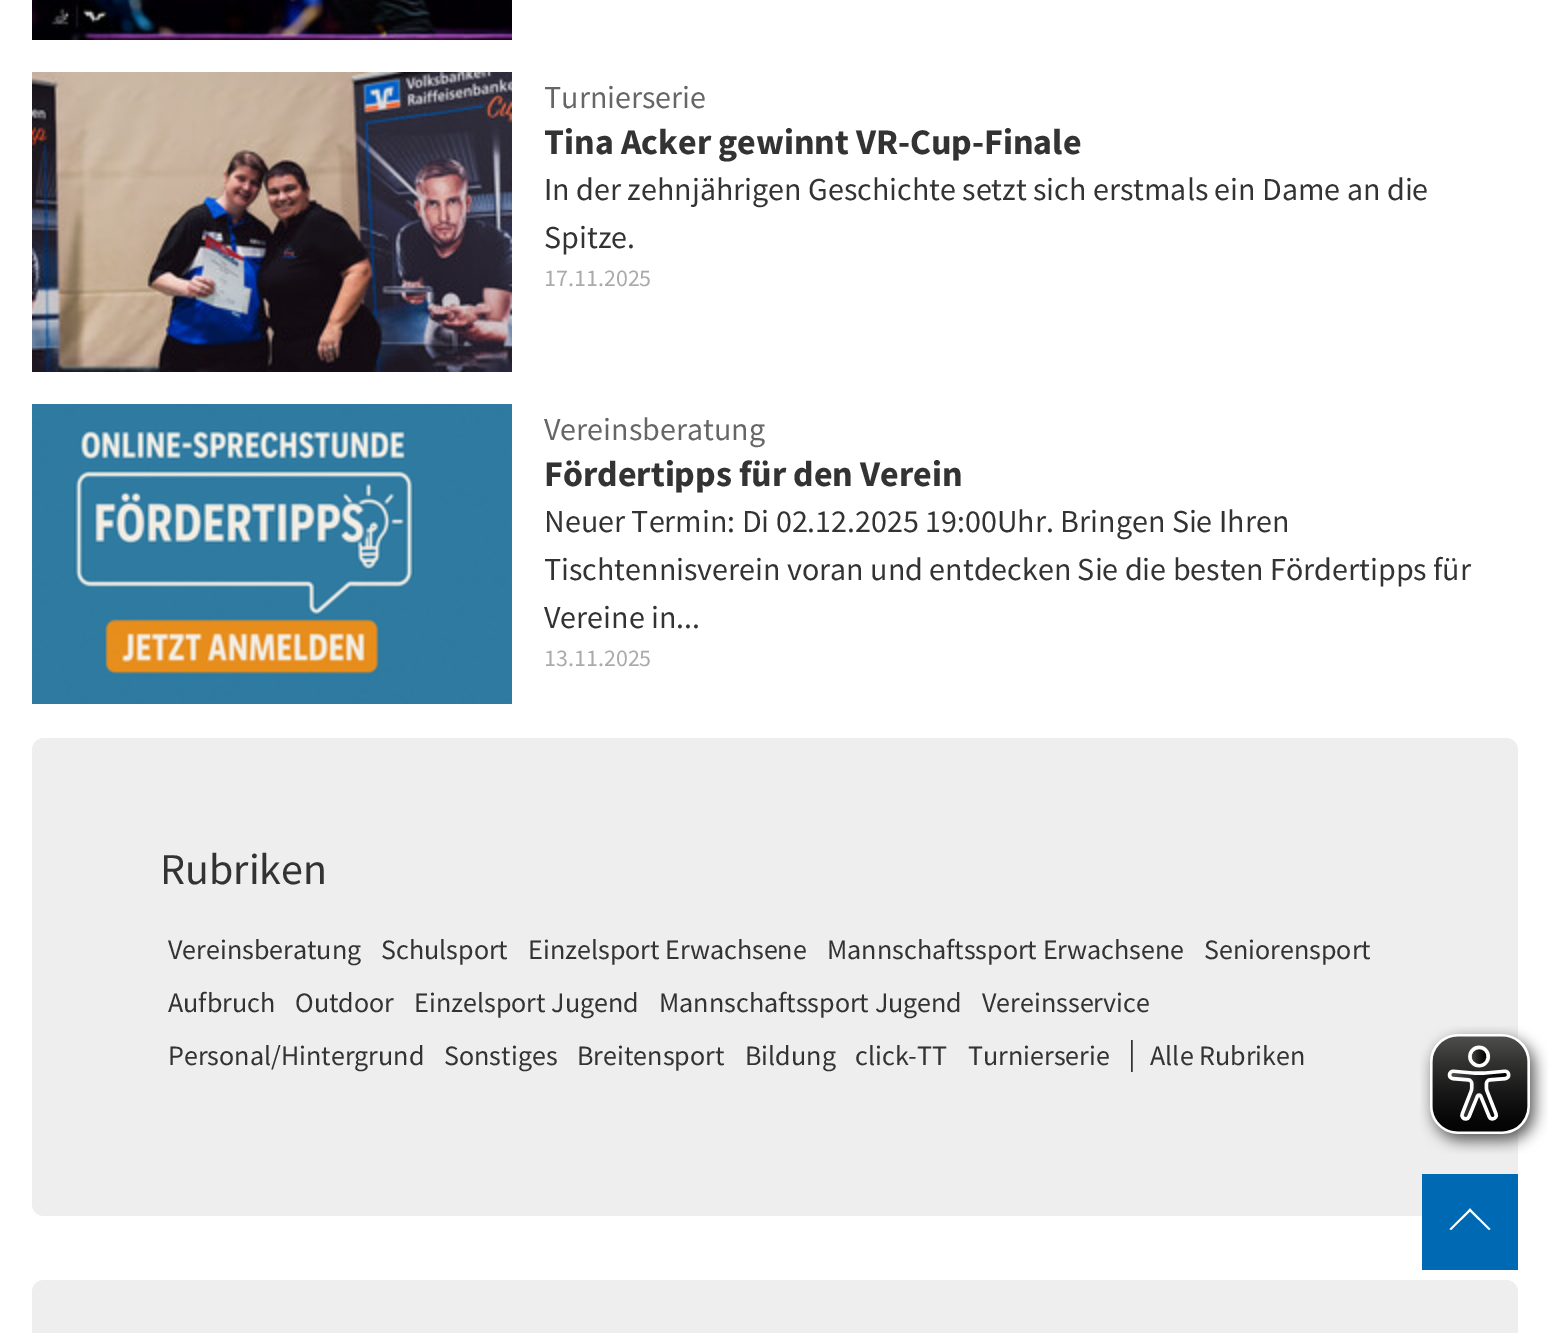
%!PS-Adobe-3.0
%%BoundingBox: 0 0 1549 1333
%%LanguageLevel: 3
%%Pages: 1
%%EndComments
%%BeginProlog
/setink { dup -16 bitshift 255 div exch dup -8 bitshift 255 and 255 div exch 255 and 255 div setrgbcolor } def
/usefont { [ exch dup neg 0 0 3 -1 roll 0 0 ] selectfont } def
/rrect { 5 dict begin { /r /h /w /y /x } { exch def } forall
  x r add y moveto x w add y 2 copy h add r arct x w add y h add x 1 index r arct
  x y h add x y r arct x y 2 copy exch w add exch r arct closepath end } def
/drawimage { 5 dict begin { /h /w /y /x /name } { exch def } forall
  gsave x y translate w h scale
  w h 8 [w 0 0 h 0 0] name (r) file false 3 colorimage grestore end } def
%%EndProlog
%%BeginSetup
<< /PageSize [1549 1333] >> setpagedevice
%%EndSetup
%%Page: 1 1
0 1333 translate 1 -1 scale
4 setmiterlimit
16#FFFFFF setink
0 0 1549 1333 rectfill
(img1.raw) 32 0 480 40 drawimage
(img2.raw) 32 72 480 300 drawimage
/SourceSansPro-Regular 32 usefont
16#666666 setink
544 108 moveto (Turnierserie) show
/SourceSansPro-Bold 36 usefont
16#333333 setink
544 154 moveto (Tina Acker gewinnt VR-Cup-Finale) show
/SourceSansPro-Regular 32 usefont
544 200 moveto (In der zehnjährigen Geschichte setzt sich erstmals ein Dame an die) show
544 248 moveto (Spitze.) show
/SourceSansPro-Regular 24 usefont
16#AAAAAA setink
544 286 moveto (17.11.2025) show
(img3.raw) 32 404 480 300 drawimage
/SourceSansPro-Regular 32 usefont
16#666666 setink
544 440 moveto (Vereinsberatung) show
/SourceSansPro-Bold 36 usefont
16#333333 setink
544 486 moveto (Fördertipps für den Verein) show
/SourceSansPro-Regular 32 usefont
[
    [(Neuer Termin: Di 02.12.2025 19:00Uhr. Bringen Sie Ihren) 544 532]
    [(Tischtennisverein voran und entdecken Sie die besten Fördertipps für) 544 580]
    [(Vereine in...) 544 628]
] { aload pop moveto show } forall
/SourceSansPro-Regular 24 usefont
16#AAAAAA setink
544 666 moveto (13.11.2025) show
16#EEEEEE setink
32 738 1486 478 12 rrect fill
/SourceSansPro-Regular 44 usefont
16#333333 setink
160 884 moveto (Rubriken) show
/SourceSansPro-Regular 28 usefont
[
    [(Vereinsberatung) 168 959]
    [(Schulsport) 381 959]
    [(Einzelsport Erwachsene) 528 959]
    [(Mannschaftssport Erwachsene) 827 959]
    [(Seniorensport) 1204 959]
    [(Aufbruch) 168 1012]
    [(Outdoor) 295 1012]
    [(Einzelsport Jugend) 414 1012]
    [(Mannschaftssport Jugend) 659 1012]
    [(Vereinsservice) 982 1012]
    [(Personal/Hintergrund) 168 1065]
    [(Sonstiges) 444 1065]
    [(Breitensport) 577 1065]
    [(Bildung) 745 1065]
    [(click-TT) 855 1065]
    [(Turnierserie) 968 1065]
] { aload pop moveto show } forall
/SourceSansPro-Regular 32 usefont
1128 1064 moveto (|) show
/SourceSansPro-Regular 28 usefont
1150 1065 moveto (Alle Rubriken) show
16#EEEEEE setink
32 1280 1486 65 12 rrect fill
16#0069B4 setink
1422 1174 96 96 rectfill
16#FFFFFF setink
1470 1208.5 moveto 1490.5 1229 lineto 1489 1230 lineto 1468.5 1210 lineto closepath fill
1470 1208.5 moveto 1471.5 1210 lineto 1451 1230 lineto 1449.5 1229 lineto closepath fill
(img4.raw) 1420 1026 128 128 drawimage
showpage
%%EOF
